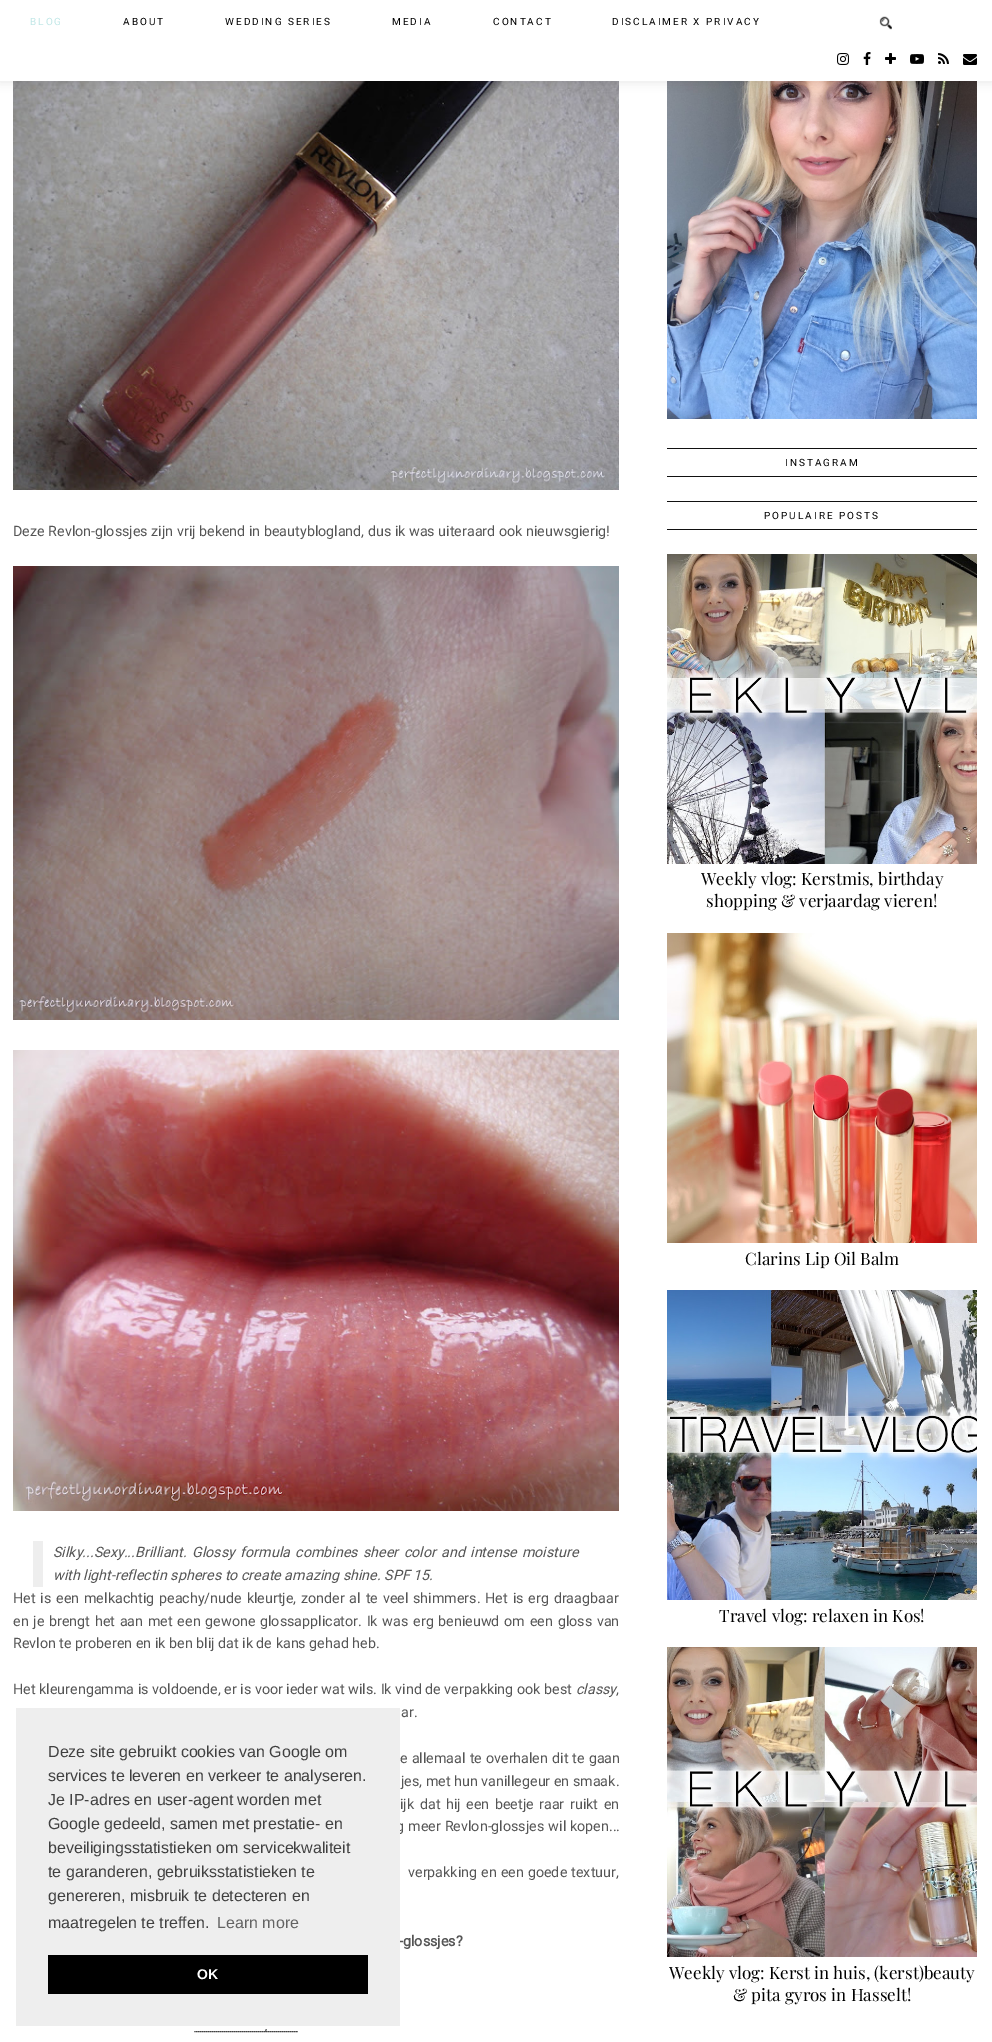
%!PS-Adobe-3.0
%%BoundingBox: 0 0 992 2042
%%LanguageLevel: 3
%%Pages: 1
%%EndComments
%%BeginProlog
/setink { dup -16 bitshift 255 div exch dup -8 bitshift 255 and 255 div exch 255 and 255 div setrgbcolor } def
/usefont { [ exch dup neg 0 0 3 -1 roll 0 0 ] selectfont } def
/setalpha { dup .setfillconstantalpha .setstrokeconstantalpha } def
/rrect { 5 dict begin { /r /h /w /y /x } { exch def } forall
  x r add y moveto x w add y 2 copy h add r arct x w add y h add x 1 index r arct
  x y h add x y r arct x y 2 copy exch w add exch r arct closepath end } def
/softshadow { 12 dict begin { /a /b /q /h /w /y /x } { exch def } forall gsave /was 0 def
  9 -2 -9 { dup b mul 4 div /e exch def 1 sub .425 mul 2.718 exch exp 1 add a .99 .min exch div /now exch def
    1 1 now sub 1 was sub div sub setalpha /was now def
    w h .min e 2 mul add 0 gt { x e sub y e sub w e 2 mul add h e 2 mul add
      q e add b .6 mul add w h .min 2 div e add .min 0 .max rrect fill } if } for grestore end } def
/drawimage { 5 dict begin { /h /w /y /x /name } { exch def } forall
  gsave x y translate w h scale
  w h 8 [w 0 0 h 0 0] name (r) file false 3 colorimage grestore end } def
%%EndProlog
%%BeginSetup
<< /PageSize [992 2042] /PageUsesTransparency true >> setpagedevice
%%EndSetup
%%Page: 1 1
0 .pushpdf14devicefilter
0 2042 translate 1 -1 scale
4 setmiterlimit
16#FFFFFF setink
0 0 992 2042 rectfill
(img8.raw) 13 81 606 409 drawimage
(img11.raw) 667 81 310 338 drawimage
16#000000 setink
0 1 992 81 0 5 0.1 softshadow
16#FFFFFF setink
0 0 992 81 rectfill
/Roboto-Regular 10 usefont
16#C1E7E7 setink
30 25 moveto 2 0 (BLOG) ashow
16#000000 setink
123 25 moveto 2 0 (ABOUT) ashow
225 25 moveto 2 0 (WEDDING SERIES) ashow
392 25 moveto 2 0 (MEDIA) ashow
493 25 moveto 2 0 (CONTACT) ashow
612 25 moveto 2 0 (DISCLAIMER X PRIVACY) ashow
(img1.raw) 879 16 13 14 drawimage
(img2.raw) 837 53 12 12 drawimage
(img3.raw) 863 52 8 13 drawimage
(img4.raw) 885 53 11 11 drawimage
(img5.raw) 910 54 14 10 drawimage
(img6.raw) 938 53 11 11 drawimage
(img7.raw) 963 54 14 11 drawimage
/Roboto-Regular 14.3 usefont
16#555555 setink
13 536 moveto (Deze Revlon-glossjes zijn vrij bekend in beautyblogland, dus ik was uiteraard ook nieuwsgierig!) show
(img9.raw) 13 566 606 454 drawimage
(img10.raw) 13 1050 606 461 drawimage
16#EEEEEE setink
33 1541 10 46 rectfill
/Roboto-Italic 14.3 usefont
16#555555 setink
53 1557 moveto 1.75 0 32 (Silky...Sexy...Brilliant. Glossy formula combines sheer color and intense moisture) widthshow
53 1580 moveto (with light-reflectin spheres to create amazing shine. SPF 15.) show
/Roboto-Regular 14.3 usefont
13 1603 moveto 1.3 0 32 (Het is een melkachtig peachy/nude kleurtje, zonder al te veel shimmers. Het is erg draagbaar) widthshow
13 1626 moveto 1.2 0 32 (en je brengt het aan met een gewone glossapplicator. Ik was erg benieuwd om een gloss van) widthshow
13 1648 moveto (Revlon te proberen en ik ben blij dat ik de kans gehad heb.) show
13 1694 moveto (Het kleurengamma is voldoende, er is voor ieder wat wils. Ik vind de verpakking ook best) show
/Roboto-Italic 14.3 usefont
576 1694 moveto (classy) show
/Roboto-Regular 14.3 usefont
616 1694 moveto (,) show
401 1717 moveto (ar.) show
400 1763 moveto 0.5 0 32 (e allemaal te overhalen dit te gaan) widthshow
401 1786 moveto (jes, met hun vanillegeur en smaak.) show
400 1809 moveto 2 0 32 (ijk dat hij een beetje raar ruikt en) widthshow
396 1831 moveto 0.5 0 32 (g meer Revlon-glossjes wil kopen...) widthshow
408 1877 moveto 0.5 0 32 (verpakking en een goede textuur,) widthshow
/Roboto-Bold 14.3 usefont
399 1946 moveto (-glossjes?) show
16#000000 setink
[1 1] 0 setdash
194.5 2031.5 moveto 297.5 2031.5 lineto stroke
/Roboto-Regular 10 usefont
265 2030 moveto 1 0 (,) ashow
16#111111 setink
667 448 310 1 rectfill
667 476 310 1 rectfill
16#000000 setink
785 466 moveto 2 0 (INSTAGRAM) ashow
16#111111 setink
667 501 310 1 rectfill
667 529 310 1 rectfill
16#000000 setink
764 519 moveto 2 0 (POPULAIRE POSTS) ashow
(img12.raw) 667 554 310 310 drawimage
/PlayfairDisplay-Regular 17 usefont
701 885 moveto (Weekly vlog: Kerstmis, birthday) show
706 907 moveto (shopping & verjaardag vieren!) show
(img13.raw) 667 933 310 310 drawimage
745 1265 moveto (Clarins Lip Oil Balm) show
(img14.raw) 667 1290 310 310 drawimage
719 1622 moveto (Travel vlog: relaxen in Kos!) show
(img15.raw) 667 1647 310 310 drawimage
669 1979 moveto (Weekly vlog: Kerst in huis, \(kerst\)beauty) show
733 2001 moveto (& pita gyros in Hasselt!) show
16#EEEEEE setink
16 1708 384 318 rectfill
/LiberationSans-Regular 16 usefont
16#404040 setink
[
    [(Deze site gebruikt cookies van Google om) 48 1757]
    [(services te leveren en verkeer te analyseren.) 48 1781]
    [(Je IP-adres en user-agent worden met) 48 1805]
    [(Google gedeeld, samen met prestatie- en) 48 1829]
    [(beveiligingsstatistieken om servicekwaliteit) 48 1853]
    [(te garanderen, gebruiksstatistieken te) 48 1877]
    [(genereren, misbruik te detecteren en) 48 1901]
    [(maatregelen te treffen.) 48 1928]
] { aload pop moveto show } forall
16#636363 setink
217 1928 moveto (Learn more) show
16#000000 setink
48 1955 320 39 rectfill
/LiberationSans-Bold 14 usefont
16#FFFFFF setink
197 1979 moveto (OK) show
.poppdf14devicefilter showpage
%%EOF
